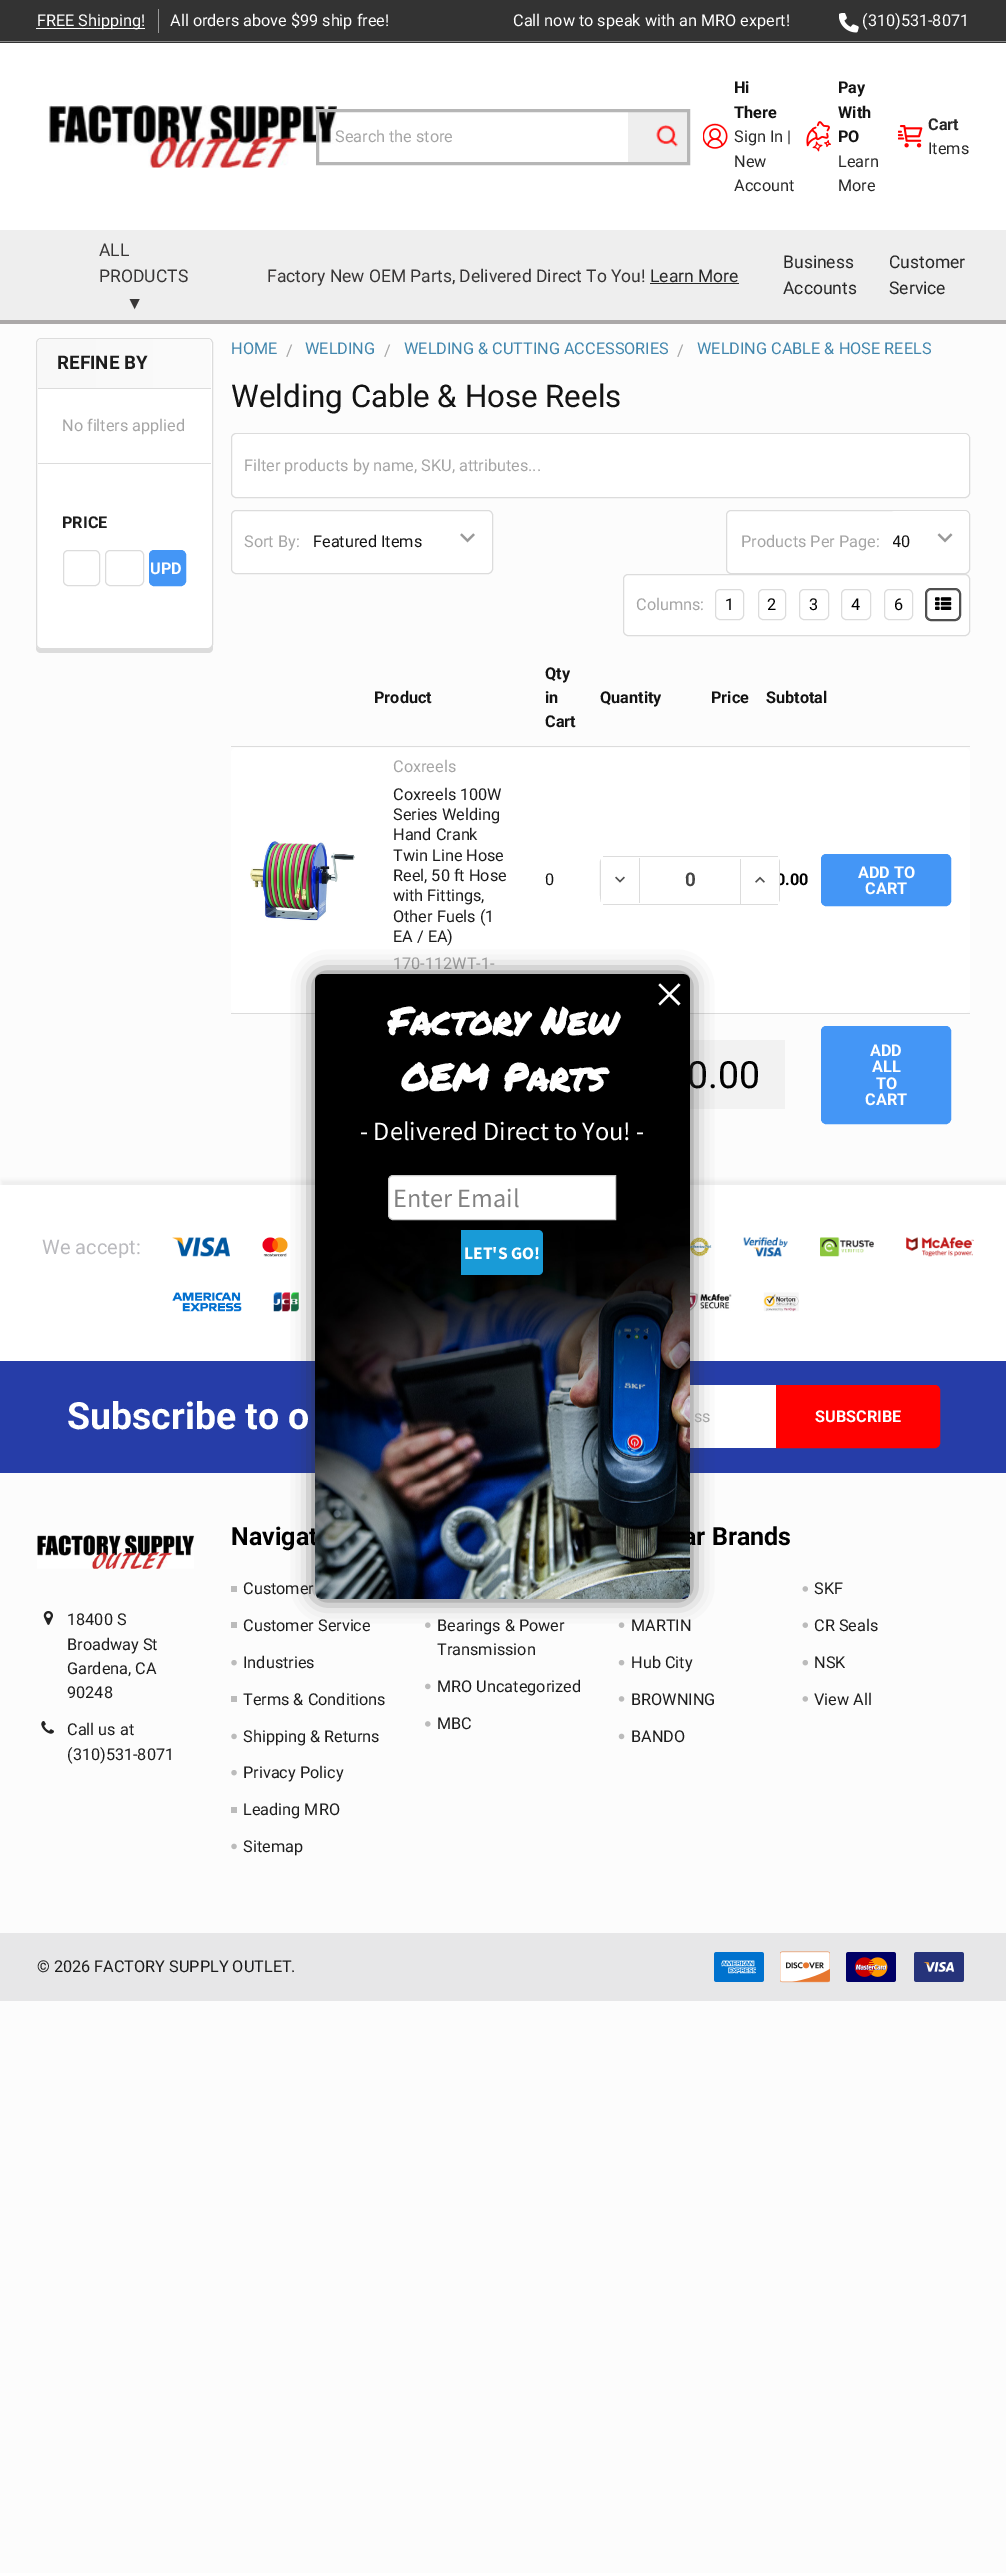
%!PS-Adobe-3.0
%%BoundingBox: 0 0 1006 2573
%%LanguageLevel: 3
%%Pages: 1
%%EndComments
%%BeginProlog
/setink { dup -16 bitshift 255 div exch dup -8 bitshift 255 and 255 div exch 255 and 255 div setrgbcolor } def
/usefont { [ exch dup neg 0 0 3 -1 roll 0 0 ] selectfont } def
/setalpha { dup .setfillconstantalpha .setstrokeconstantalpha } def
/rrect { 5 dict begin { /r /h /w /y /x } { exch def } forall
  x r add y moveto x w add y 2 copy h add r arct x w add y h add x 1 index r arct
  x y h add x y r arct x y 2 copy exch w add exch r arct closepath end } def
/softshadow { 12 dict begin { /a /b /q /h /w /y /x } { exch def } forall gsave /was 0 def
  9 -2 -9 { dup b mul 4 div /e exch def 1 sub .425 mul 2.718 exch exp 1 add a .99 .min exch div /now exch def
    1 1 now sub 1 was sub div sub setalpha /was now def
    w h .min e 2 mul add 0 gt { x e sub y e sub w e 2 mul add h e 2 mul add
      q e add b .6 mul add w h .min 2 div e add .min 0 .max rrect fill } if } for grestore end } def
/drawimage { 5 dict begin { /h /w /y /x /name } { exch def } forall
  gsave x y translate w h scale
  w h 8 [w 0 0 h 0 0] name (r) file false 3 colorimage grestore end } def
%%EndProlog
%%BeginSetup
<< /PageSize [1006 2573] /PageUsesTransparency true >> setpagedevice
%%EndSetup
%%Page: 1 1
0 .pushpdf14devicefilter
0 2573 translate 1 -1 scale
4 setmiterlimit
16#FCFCFC setink
0 0 1006 2573 rectfill
[
    [0 43 1006 187 16#FFFFFF]
    [0 0 1006 43 16#333333]
    [0 41 1006 1 16#888888]
    [36 28 109 1 16#FFFFFF]
] { aload pop setink rectfill } forall
/Roboto-Regular 16.25 usefont
37 26 moveto (FREE Shipping!) show
16#999999 setink
158 9 1 24 rectfill
16#FFFFFF setink
170 26 moveto (All orders above $99 ship free!) show
513 26 moveto (Call now to speak with an MRO expert!) show
(img1.raw) 839 13 20 20 drawimage
862 26 moveto (\(310\)531-8071) show
(img2.raw) 48 105 289 63 drawimage
16#EEEEEE setink
628 112 59 50 rectfill
(img3.raw) 656 125 22 22 drawimage
16#B6B6B6 setink
3 setlinewidth
317.5 110.5 371 53 rectstroke
16#A5A5A5 setink
335 142 moveto (Search the store) show
(img4.raw) 703 123 25 26 drawimage
/Roboto-Bold 16.25 usefont
16#131313 setink
734 93 moveto (Hi) show
734 118 moveto (There) show
/Roboto-Regular 16.25 usefont
16#282828 setink
734 142 moveto (Sign In) show
16#131313 setink
787 142 moveto (|) show
16#282828 setink
734 167 moveto (New) show
734 191 moveto (Account) show
(img5.raw) 806 121 25 31 drawimage
/Roboto-Bold 16.25 usefont
16#131313 setink
[
    [(Pay) 838 93]
    [(With) 838 118]
    [(PO) 838 142]
] { aload pop moveto show } forall
/Roboto-Regular 16.25 usefont
16#282828 setink
838 167 moveto (Learn) show
838 191 moveto (More) show
(img6.raw) 898 125 25 23 drawimage
/Roboto-Bold 16.25 usefont
928 130 moveto (Cart) show
/Roboto-Regular 16.25 usefont
928 154 moveto (Items) show
16#ABA8A8 setink
0 320 1006 4 rectfill
16#EEEEEE setink
0 230 1006 90 rectfill
/Roboto-Regular 17.5 usefont
16#383636 setink
99 256 moveto (ALL) show
99 282 moveto (PRODUCTS) show
/LiberationSerif-Regular 17.5 usefont
126 309 moveto (▼) show
/Roboto-Regular 17.5 usefont
267 282 moveto (Factory New OEM Parts, Delivered Direct To You!) show
16#282828 setink
650 282 moveto (Learn More) show
650 283 89 1 rectfill
[
    [(Business) 783 268]
    [(Accounts) 783 294]
    [(Customer) 889 268]
    [(Service) 889 294]
] { aload pop moveto show } forall
16#DCDCDC setink
36 344 moveto 36 648 lineto 36 651 38 653 41 653 curveto 208 653 lineto 211 653 213 651 213 648 curveto 213 346 lineto 212 344 lineto 212 644 lineto 212 647 210 649 208 649 curveto 41 649 lineto 38 649 36 647 36 644 curveto closepath fill
16#FFFFFF setink
36.5 338.5 176 310 4.5 rrect gsave fill grestore
16#DCDCDC setink
1 setlinewidth
stroke
38 463 173 1 rectfill
gsave 42 339 moveto 207 339 lineto 209 339 211 341 211 343 curveto 211 389 lineto 38 389 lineto 38 343 lineto 38 341 40 339 42 339 curveto closepath clip newpath
<< /ShadingType 2 /ColorSpace /DeviceRGB /Coords [38 363 211 363] /Extend [true true] /Function << /FunctionType 2 /Domain [0 1] /C0 [0.973 0.973 0.973] /C1 [0.984 0.984 0.984] /N 1 >> >> shfill grestore
38 388 173 1 rectfill
/Roboto-Bold 18.75 usefont
16#1D1D1D setink
57 369 moveto (REFINE BY) show
/Roboto-Regular 16.25 usefont
16#A5A5A5 setink
62 431 moveto (No filters applied) show
/Roboto-Bold 16.25 usefont
16#1D1D1D setink
62 528 moveto (PRICE) show
16#DCDCDC setink
63.5 550.5 36 35 4.5 rrect stroke
105.5 550.5 38 35 4.5 rrect stroke
16#4496F6 setink
149.5 550.5 36 35 4.5 rrect gsave fill grestore
stroke
16#FFFFFF setink
150 574 moveto (UPD) show
/Roboto-Regular 16.25 usefont
16#4186AD setink
231 354 moveto (HOME) show
16#A5A5A5 setink
286 356 moveto (/) show
16#4186AD setink
305 354 moveto (WELDING) show
16#A5A5A5 setink
384 356 moveto (/) show
16#4186AD setink
404 354 moveto (WELDING & CUTTING ACCESSORIES) show
16#A5A5A5 setink
677 356 moveto (/) show
16#4186AD setink
697 354 moveto (WELDING CABLE & HOSE REELS) show
/Roboto-Regular 31.25 usefont
16#131313 setink
231 407 moveto (Welding Cable & Hose Reels) show
16#FFFFFF setink
231.5 433.5 738 64 4.5 rrect gsave fill grestore
16#DCDCDC setink
stroke
16#FFFFFF setink
233 434 736 62 5 rrect fill
/Roboto-Regular 16.25 usefont
16#A5A5A5 setink
244 471 moveto (Filter products by name, SKU, attributes...) show
16#FFFFFF setink
231.5 510.5 261 63 4.5 rrect gsave fill grestore
16#DCDCDC setink
stroke
16#A5A5A5 setink
244 547 moveto (Sort By:) show
(img7.raw) 460 533 15 10 drawimage
16#131313 setink
313 547 moveto (Featured Items) show
16#FFFFFF setink
726.5 510.5 243 63 4.5 rrect gsave fill grestore
16#DCDCDC setink
stroke
16#A5A5A5 setink
741 547 moveto (Products Per Page:) show
16#FFFFFF setink
890 511 79 60 5 rrect fill
(img8.raw) 937 533 16 10 drawimage
gsave
893 533 27 18 rectclip
16#131313 setink
892 547 moveto (40) show
grestore
623.5 574.5 346 61 4.5 rrect gsave fill grestore
16#DCDCDC setink
stroke
16#A5A5A5 setink
636 610 moveto (Columns:) show
16#DCDCDC setink
715.5 589.5 28 30 4.5 rrect stroke
16#000000 setink
725 610 moveto (1) show
16#DCDCDC setink
758.5 589.5 27 30 4.5 rrect stroke
16#000000 setink
767 610 moveto (2) show
16#DCDCDC setink
799.5 589.5 29 30 4.5 rrect stroke
16#000000 setink
809 610 moveto (3) show
16#DCDCDC setink
841.5 589.5 29 30 4.5 rrect stroke
16#000000 setink
851 610 moveto (4) show
16#DCDCDC setink
884.5 589.5 28 30 4.5 rrect stroke
16#000000 setink
894 610 moveto (6) show
16#4F4F4F setink
925.5 588.5 35 32 5.5 rrect stroke
926.5 589.5 33 30 4.5 rrect stroke
(img9.raw) 935 597 17 13 drawimage
/Roboto-Bold 16.25 usefont
16#131313 setink
[
    [(Product) 374 703]
    [(Qty) 545 679]
    [(in) 545 703]
    [(Cart) 545 727]
    [(Quantity) 600 703]
    [(Price) 711 703]
    [(Subtotal) 766 703]
] { aload pop moveto show } forall
16#DCDCDC setink
231 746 739 1 rectfill
16#FFFFFF setink
231 748 739 265 5 rrect fill
(img10.raw) 250 841 105 80 drawimage
/Roboto-Regular 16.25 usefont
16#A5A5A5 setink
393 772 moveto (Coxreels) show
16#1D1D1D setink
[
    [(Coxreels 100W) 393 800]
    [(Series Welding) 393 820]
    [(Hand Crank) 393 840]
    [(Twin Line Hose) 393 861]
    [(Reel, 50 ft Hose) 393 881]
    [(with Fittings,) 393 901]
    [(Other Fuels \(1) 393 922]
    [(EA / EA\)) 393 942]
] { aload pop moveto show } forall
16#A5A5A5 setink
393 969 moveto (170-112WT-1-) show
16#131313 setink
545 885 moveto (0) show
[
    [603 856 175 1 16#DCDCDC]
    [603 904 175 1 16#DCDCDC]
    [639 858 1 45 16#DCDCDC]
] { aload pop setink rectfill } forall
600 861 moveto 600 867 599 900 601 902 curveto 601 859 lineto closepath fill
(img11.raw) 615 876 10 7 drawimage
/Roboto-Bold 18.75 usefont
16#454545 setink
685 886 moveto (0) show
/Roboto-Bold 16.25 usefont
16#000000 setink
776 885 moveto (0.00) show
16#FFFFFF setink
742 858 moveto 741 858 740 859 740 860 curveto 740 904 lineto 775 904 lineto 778 904 780 902 780 900 curveto 780 861 lineto 780 860 779 859 777 858 curveto closepath fill
16#DCDCDC setink
779 859 moveto 779 902 lineto 780 900 lineto 780 861 lineto closepath fill
740 859 1 45 rectfill
(img12.raw) 755 876 10 7 drawimage
16#4496F6 setink
821.5 854.5 129 51 4.5 rrect gsave fill grestore
stroke
16#FFFFFF setink
858 878 moveto (ADD TO) show
865 894 moveto (CART) show
16#DCDCDC setink
231 1013 739 1 rectfill
16#F2F2F2 setink
690 1040 95 69 rectfill
/Roboto-Regular 37.5 usefont
16#000000 setink
687 1088 moveto (0.00) show
16#4496F6 setink
821.5 1026.5 129 97 4.5 rrect gsave fill grestore
stroke
/Roboto-Bold 16.25 usefont
16#FFFFFF setink
[
    [(ADD) 870 1056]
    [(ALL) 872 1072]
    [(TO) 876 1089]
    [(CART) 865 1105]
] { aload pop moveto show } forall
16#EEEEEE setink
1 1180 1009 179 0 2 1 softshadow
16#FFFFFF setink
0 1185 1006 176 rectfill
(img15.raw) 262 1237 26 20 drawimage
(img17.raw) 273 1292 26 20 drawimage
(img18.raw) 690 1237 22 20 drawimage
(img22.raw) 690 1292 42 20 drawimage
16#263DA8 setink
0 1361 1006 112 rectfill
16#FFFFFF setink
690 1385 86 63 rectfill
(img29.raw) 425 1622 6 6 drawimage
(img33.raw) 618 1622 7 6 drawimage
16#323232 setink
314 973 377 627 8 10.5 0.69 softshadow
/Roboto-Bold 25 usefont
16#000000 setink
231 1545 moveto (Navigat) show
683 1545 moveto (ar Brands) show
16#FFFFFF setink
315 974 375 625 6 rrect fill
(img13.raw) 315 974 375 625 drawimage
660 983.5 moveto 680.5 1003.5 lineto 678.5 1005.5 lineto 658.5 985 lineto closepath fill
658.5 1003.5 moveto 678.5 983.5 lineto 680.5 985 lineto 660 1005.5 lineto closepath fill
/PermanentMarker-Bold 37.5 usefont
388 1035 moveto (Factory New) show
401 1091 moveto (OEM Parts) show
/SourceSansPro-Regular 26.25 usefont
360 1140 moveto (- Delivered Direct to You! -) show
393 1175.5 moveto 615.5 1175.5 lineto 615.5 1219.5 lineto 393 1219.5 lineto 390.5 1219.5 388.5 1217.5 388.5 1215 curveto 388.5 1180 lineto 388.5 1177.5 390.5 1175.5 393 1175.5 curveto closepath gsave fill grestore
16#CCCCCC setink
stroke
16#818181 setink
393 1207 moveto (Enter Email) show
16#199BD7 setink
461 1230 moveto 538 1230 lineto 541 1230 543 1232 543 1235 curveto 543 1270 lineto 543 1273 541 1275 538 1275 curveto 461 1275 lineto closepath fill
/SourceSansPro-Bold 17.5 usefont
16#FFFFFF setink
464 1259 moveto (LET'S GO!) show
/Roboto-Regular 20 usefont
16#BABABE setink
42 1254 moveto (We accept:) show
(img14.raw) 172 1237 58 20 drawimage
(img16.raw) 172 1292 70 20 drawimage
(img19.raw) 743 1237 45 20 drawimage
(img20.raw) 820 1237 54 20 drawimage
(img21.raw) 906 1237 68 20 drawimage
(img23.raw) 763 1292 36 20 drawimage
/Roboto-Bold 37.5 usefont
16#FFFFFF setink
67 1429 moveto (Subscribe to o) show
/Roboto-Regular 16.25 usefont
16#A5A5A5 setink
694 1422 moveto (ss) show
16#FF0000 setink
776.5 1385.5 moveto 935 1385.5 lineto 937.5 1385.5 939.5 1387.5 939.5 1390 curveto 939.5 1443 lineto 939.5 1445.5 937.5 1447.5 935 1447.5 curveto 776.5 1447.5 lineto closepath gsave fill grestore
stroke
/Roboto-Bold 16.25 usefont
16#FFFFFF setink
815 1422 moveto (SUBSCRIBE) show
(img24.raw) 37 1535 158 34 drawimage
(img25.raw) 43 1611 10 14 drawimage
/Roboto-Regular 16.25 usefont
16#1D1D1D setink
[
    [(18400 S) 67 1625]
    [(Broadway St) 67 1650]
    [(Gardena, CA) 67 1674]
    [(90248) 67 1698]
] { aload pop moveto show } forall
(img26.raw) 41 1721 13 13 drawimage
67 1735 moveto (Call us at) show
67 1760 moveto (\(310\)531-8071) show
16#BBBBBB setink
231 1586 6 6 rectfill
16#1D1D1D setink
243 1594 moveto (Customer) show
16#BBBBBB setink
231 1622 6 6 rectfill
16#1D1D1D setink
243 1631 moveto (Customer Service) show
(img27.raw) 231 1660 6 6 drawimage
243 1668 moveto (Industries) show
16#BBBBBB setink
231 1696 6 6 rectfill
16#1D1D1D setink
243 1705 moveto (Terms & Conditions) show
(img28.raw) 231 1733 6 7 drawimage
243 1742 moveto (Shipping & Returns) show
(img27.raw) 231 1770 6 6 drawimage
243 1778 moveto (Privacy Policy) show
16#BBBBBB setink
231 1807 6 6 rectfill
16#1D1D1D setink
243 1815 moveto (Leading MRO) show
(img28.raw) 231 1843 6 7 drawimage
[
    [(Sitemap) 243 1852]
    [(Bearings & Power) 437 1631]
    [(Transmission) 437 1655]
] { aload pop moveto show } forall
(img30.raw) 425 1683 6 7 drawimage
437 1692 moveto (MRO Uncategorized) show
(img31.raw) 425 1721 6 6 drawimage
437 1729 moveto (MBC) show
(img32.raw) 802 1586 6 6 drawimage
814 1594 moveto (SKF) show
631 1631 moveto (MARTIN) show
(img34.raw) 802 1622 6 6 drawimage
814 1631 moveto (CR Seals) show
(img35.raw) 618 1660 7 6 drawimage
631 1668 moveto (Hub City) show
(img36.raw) 802 1660 6 6 drawimage
814 1668 moveto (NSK) show
(img37.raw) 618 1696 7 6 drawimage
631 1705 moveto (BROWNING) show
(img32.raw) 802 1696 6 6 drawimage
814 1705 moveto (View All) show
(img38.raw) 618 1733 7 7 drawimage
631 1742 moveto (BANDO) show
16#E7E7E8 setink
0 1933 1006 68 rectfill
16#1D1D1D setink
37 1972 moveto (© 2026 FACTORY SUPPLY OUTLET.) show
(img39.raw) 714 1952 50 30 drawimage
(img40.raw) 780 1951 50 32 drawimage
(img41.raw) 846 1952 50 30 drawimage
(img42.raw) 914 1952 50 30 drawimage
.poppdf14devicefilter showpage
%%EOF
